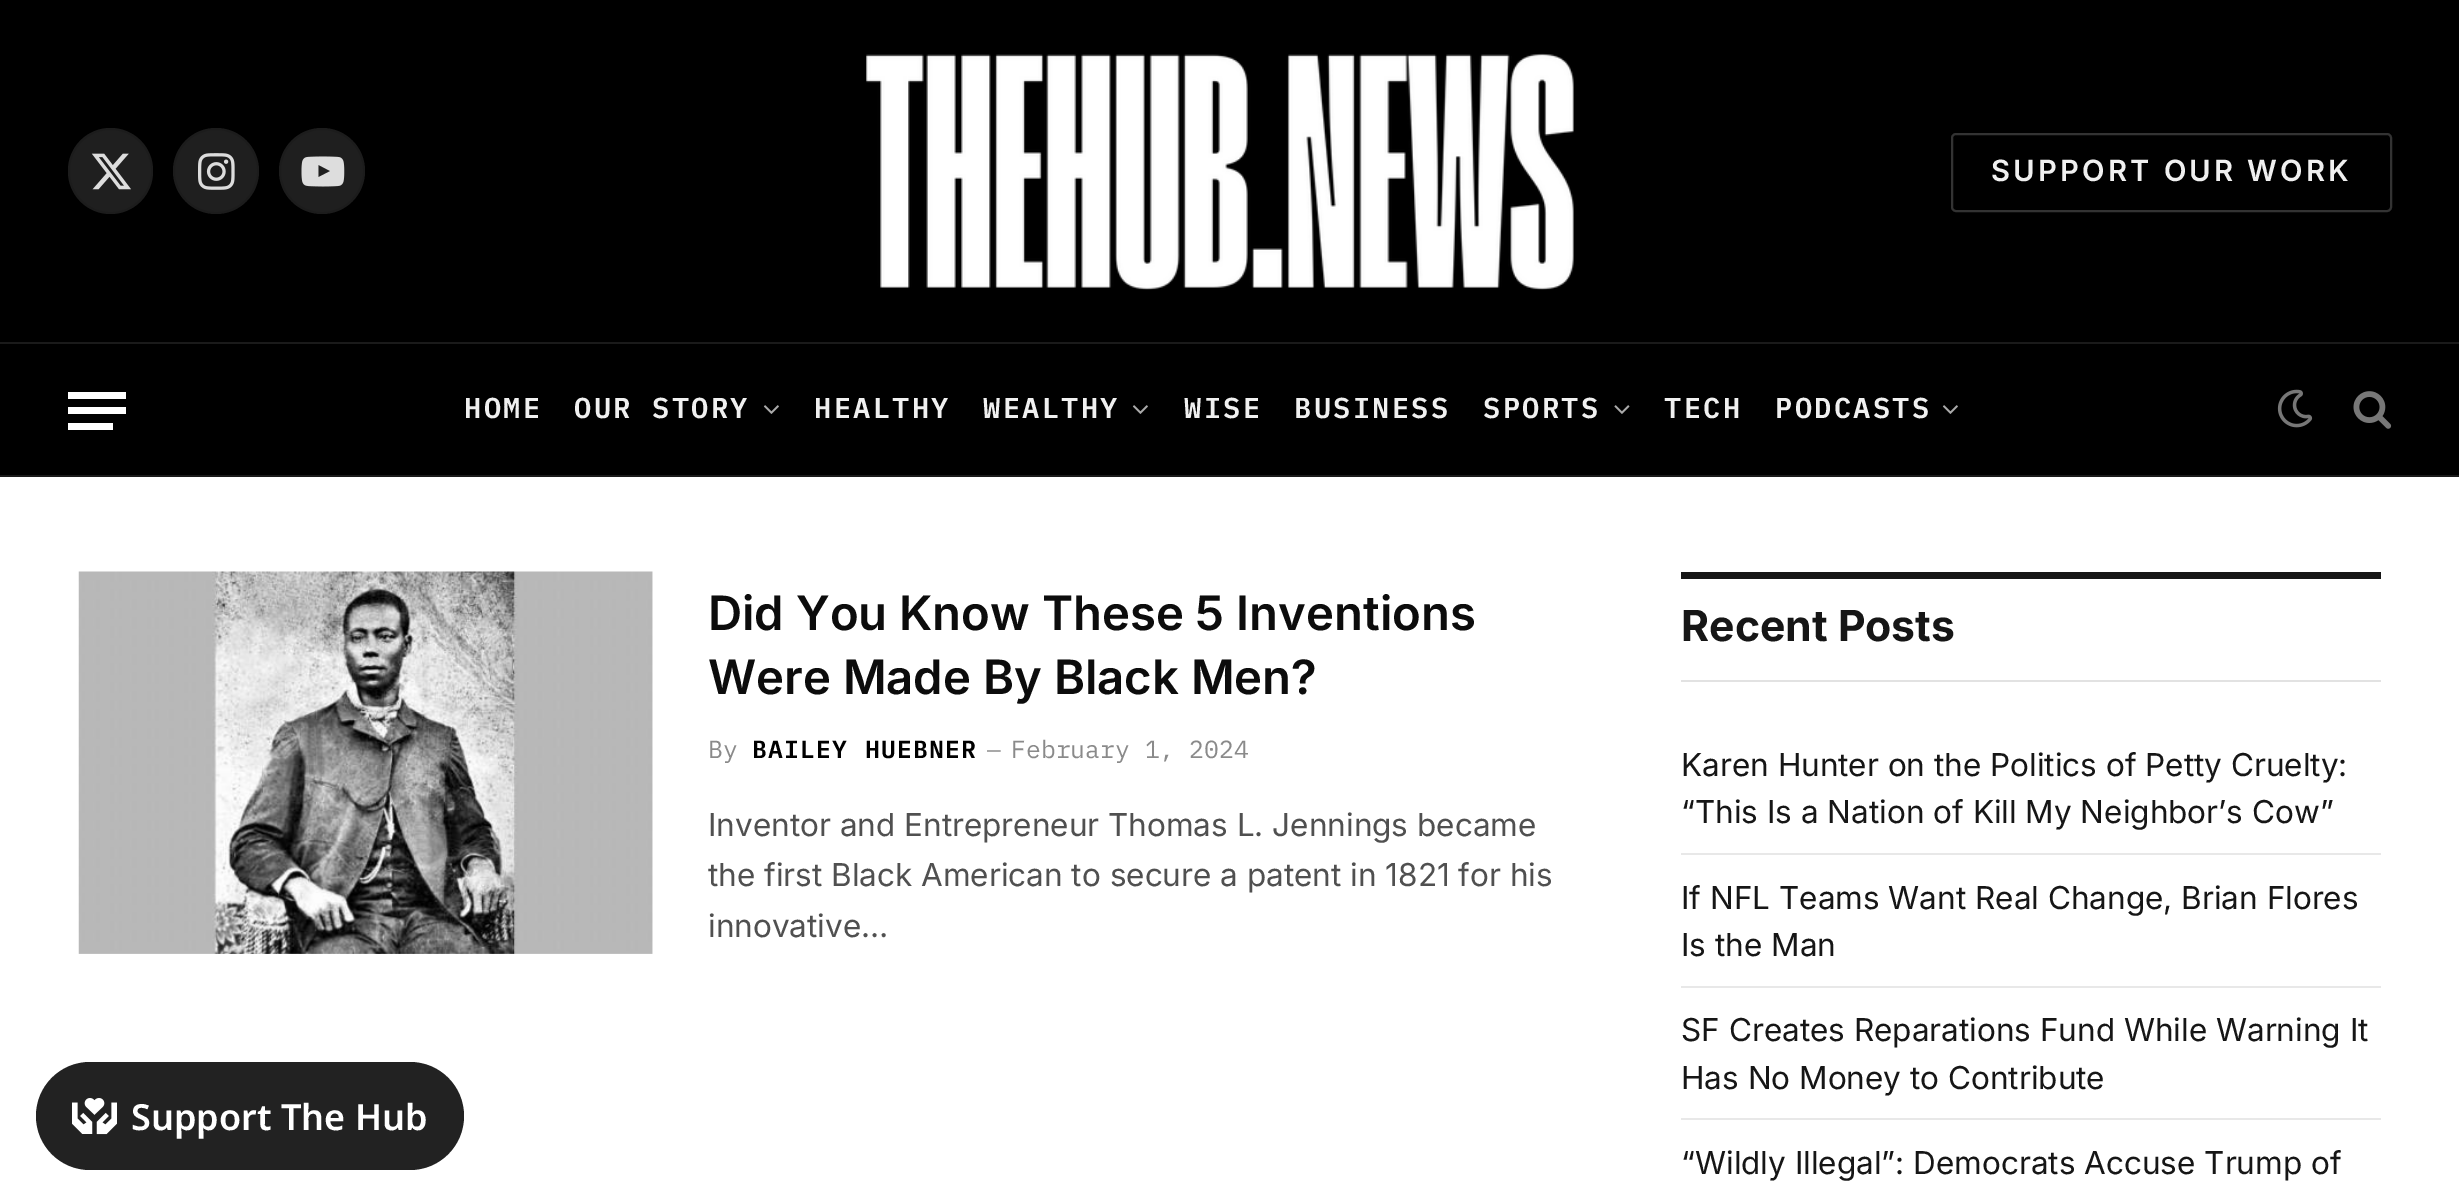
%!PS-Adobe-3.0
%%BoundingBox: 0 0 2459 1204
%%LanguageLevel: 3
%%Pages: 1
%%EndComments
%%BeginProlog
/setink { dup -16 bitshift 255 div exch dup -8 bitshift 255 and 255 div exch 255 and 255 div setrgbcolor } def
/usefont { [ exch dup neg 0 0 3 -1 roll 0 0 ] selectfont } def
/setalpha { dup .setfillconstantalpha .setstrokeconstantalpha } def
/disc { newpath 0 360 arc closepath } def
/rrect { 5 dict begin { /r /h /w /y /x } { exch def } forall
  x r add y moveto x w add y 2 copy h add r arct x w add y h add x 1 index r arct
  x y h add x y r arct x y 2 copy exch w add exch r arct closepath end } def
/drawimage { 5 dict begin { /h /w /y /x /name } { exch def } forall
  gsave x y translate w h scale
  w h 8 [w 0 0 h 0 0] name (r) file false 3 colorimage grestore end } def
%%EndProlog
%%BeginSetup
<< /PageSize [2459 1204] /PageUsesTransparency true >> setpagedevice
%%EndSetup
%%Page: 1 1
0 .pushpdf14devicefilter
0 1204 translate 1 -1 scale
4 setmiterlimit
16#FFFFFF setink
0 0 2459 1204 rectfill
16#000000 setink
0 0 2459 342 rectfill
16#1F1F1F setink
68 128 85 86 42.5 rrect fill
0.09 setalpha
16#000000 setink
2 setlinewidth
69 129 83 84 41.5 rrect stroke
1 setalpha
(img1.raw) 91 153 40 37 drawimage
16#1F1F1F setink
216 171 43 disc fill
0.09 setalpha
16#000000 setink
216 171 42 disc stroke
1 setalpha
(img2.raw) 198 153 37 37 drawimage
16#1F1F1F setink
322 171 43 disc fill
0.09 setalpha
16#000000 setink
322 171 42 disc stroke
1 setalpha
(img3.raw) 301 156 44 31 drawimage
(img4.raw) 866 53 708 237 drawimage
16#333333 setink
1952 134 439 77 4 rrect stroke
/Inter-SemiBold 29.25 usefont
16#F0F0F0 setink
1991 181 moveto 3.25 0 (SUPPORT OUR WORK) ashow
[
    [0 344 2459 131 16#000000]
    [0 342 2459 2 16#1A1A1A]
    [0 475 2459 2 16#1A1A1A]
    [68 423 45 7 16#FFFFFF]
    [68 392 58 7 16#FFFFFF]
    [68 407 58 7 16#FFFFFF]
] { aload pop setink rectfill } forall
/IBMPlexMono-SemiBold 28.75 usefont
16#F0F0F0 setink
464 418 moveto 2.25 0 (HOME) ashow
574 418 moveto 2.25 0 (OUR STORY) ashow
(img5.raw) 763 405 16 9 drawimage
814 418 moveto 2.25 0 (HEALTHY) ashow
983 418 moveto 2.25 0 (WEALTHY) ashow
(img5.raw) 1132 405 16 9 drawimage
1184 418 moveto 2.25 0 (WISE) ashow
1294 418 moveto 2.25 0 (BUSINESS) ashow
1483 418 moveto 2.25 0 (SPORTS) ashow
(img6.raw) 1614 405 16 9 drawimage
1664 418 moveto 2.25 0 (TECH) ashow
1775 418 moveto 2.25 0 (PODCASTS) ashow
(img5.raw) 1942 405 16 9 drawimage
(img7.raw) 2277 389 36 39 drawimage
(img8.raw) 2353 391 39 38 drawimage
16#222222 setink
36 1062 428 108 54 rrect fill
(img9.raw) 72 1098 45 37 drawimage
/NotoSans-SemiBold 36 usefont
16#FFFFFF setink
131 1130 moveto (Support The Hub) show
(img10.raw) 78 571 575 383 drawimage
/Inter-SemiBold 47.25 usefont
16#0C0C0C setink
708 630 moveto (Did You Know These 5 Inventions) show
708 694 moveto (Were Made By Black Men?) show
/IBMPlexMono-Regular 24.75 usefont
16#8A8A8A setink
708 758 moveto (By) show
/IBMPlexMono-SemiBold 24.75 usefont
16#000000 setink
752 758 moveto 1.25 0 (BAILEY HUEBNER) ashow
/IBMPlexMono-Regular 23 usefont
16#8A8A8A setink
987 758 moveto (—) show
/IBMPlexMono-Regular 24.75 usefont
1011 758 moveto (February 1, 2024) show
/Inter-Regular 31.5 usefont
16#505050 setink
[
    [(Inventor and Entrepreneur Thomas L. Jennings became) 708 836]
    [(the first Black American to secure a patent in 1821 for his) 708 886]
    [(innovative…) 708 937]
] { aload pop moveto show } forall
16#161616 setink
1681 572 700 7 rectfill
16#E2E2E2 setink
1681 680 700 2 rectfill
/Inter-Bold 42.75 usefont
16#161616 setink
1681 641 moveto (Recent Posts) show
16#E8E8E8 setink
1681 853 700 2 rectfill
/Inter-Regular 31.5 usefont
16#161616 setink
1681 776 moveto (Karen Hunter on the Politics of Petty Cruelty:) show
1681 823 moveto (“This Is a Nation of Kill My Neighbor’s Cow”) show
16#E8E8E8 setink
1681 986 700 2 rectfill
16#161616 setink
1681 909 moveto (If NFL Teams Want Real Change, Brian Flores) show
1681 956 moveto (Is the Man) show
16#E8E8E8 setink
1681 1118 700 2 rectfill
16#161616 setink
[
    [(SF Creates Reparations Fund While Warning It) 1681 1041]
    [(Has No Money to Contribute) 1681 1089]
    [(“Wildly Illegal”: Democrats Accuse Trump of) 1681 1174]
] { aload pop moveto show } forall
.poppdf14devicefilter showpage
%%EOF
